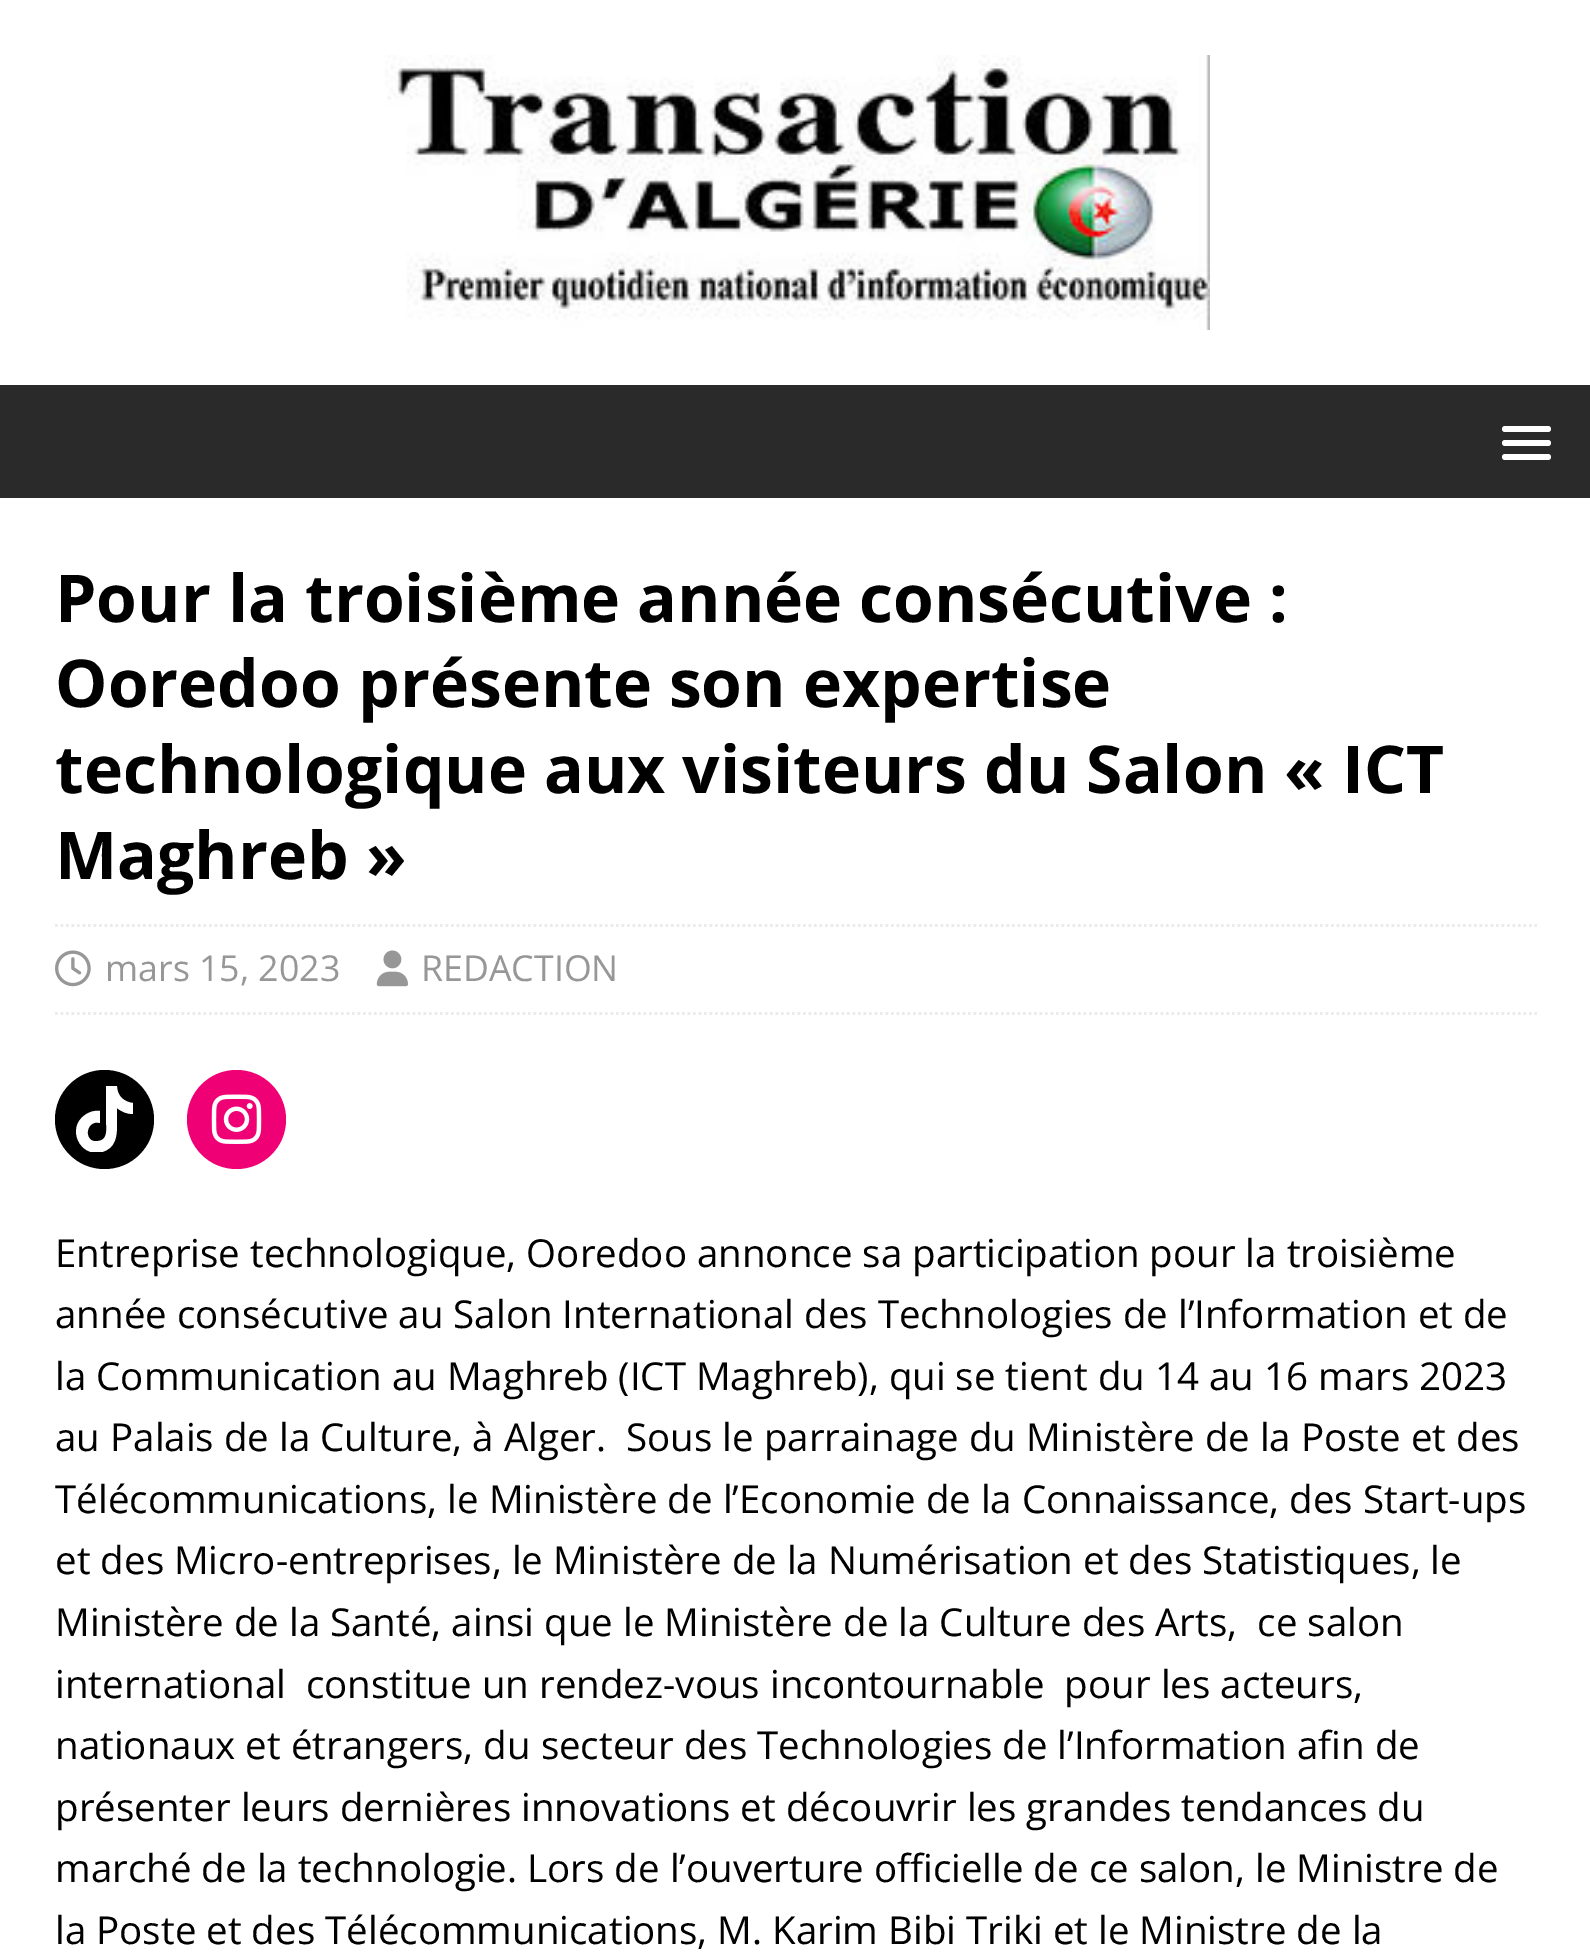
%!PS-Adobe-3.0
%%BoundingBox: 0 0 1590 1954
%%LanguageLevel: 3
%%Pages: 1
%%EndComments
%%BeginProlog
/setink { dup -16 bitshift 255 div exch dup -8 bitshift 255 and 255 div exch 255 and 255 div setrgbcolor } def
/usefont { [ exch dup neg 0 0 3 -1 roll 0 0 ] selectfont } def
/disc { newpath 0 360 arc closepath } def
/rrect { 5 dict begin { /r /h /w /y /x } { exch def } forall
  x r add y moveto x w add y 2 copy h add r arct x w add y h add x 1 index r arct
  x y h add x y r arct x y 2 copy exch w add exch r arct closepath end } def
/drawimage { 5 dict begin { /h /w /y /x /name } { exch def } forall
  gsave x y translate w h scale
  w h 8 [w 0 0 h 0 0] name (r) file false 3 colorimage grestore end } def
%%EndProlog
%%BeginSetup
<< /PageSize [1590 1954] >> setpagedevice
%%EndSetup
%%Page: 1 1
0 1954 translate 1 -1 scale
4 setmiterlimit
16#FFFFFF setink
0 0 1590 1954 rectfill
(img1.raw) 385 55 825 275 drawimage
16#2A2A2A setink
0 385 1590 113 rectfill
16#FFFFFF setink
1502 426 49 6 3 rrect fill
1502 440 49 6 3 rrect fill
1502 454 49 6 3 rrect fill
/OpenSans-Bold 66 usefont
16#000000 setink
[
    [(Pour la troisième année consécutive :) 55 622]
    [(Ooredoo présente son expertise) 55 707]
    [(technologique aux visiteurs du Salon « ICT) 55 793]
    [(Maghreb ») 55 879]
] { aload pop moveto show } forall
16#EBEBEB setink
2.8 setlinewidth
[2.75 2.75] 0 setdash
55 925.5 moveto 1537 925.5 lineto stroke
55 1013.5 moveto 1537 1013.5 lineto stroke
(img2.raw) 55 950 36 37 drawimage
/OpenSans-Regular 35.75 usefont
16#979797 setink
105 981 moveto (mars 15, 2023) show
(img3.raw) 376 950 32 37 drawimage
421 981 moveto (REDACTION) show
16#000000 setink
104.5 1119.5 49.5 disc fill
gsave
72 1086 66 66 rectclip
16#FFFFFF setink
106 1086 moveto 117 1086 lineto 117 1096 124 1102 133 1103 curveto 133 1114 lineto 127 1114 122 1112 117 1108 curveto 117 1124 lineto 117 1136 116 1148 102 1152 curveto 80 1158 66 1128 85 1115 curveto 89 1112 95 1110 100 1111 curveto 100 1123 lineto 85 1119 83 1144 98 1141 curveto 109 1140 106 1127 106 1119 curveto closepath fill
grestore
16#F00075 setink
236.5 1119.5 49.5 disc fill
(img4.raw) 211 1094 51 50 drawimage
/OpenSans-Regular 38.5 usefont
16#000000 setink
[
    [(Entreprise technologique, Ooredoo annonce sa participation pour la troisième) 55 1267]
    [(année consécutive au Salon International des Technologies de l’Information et de) 55 1328]
    [(la Communication au Maghreb \(ICT Maghreb\), qui se tient du 14 au 16 mars 2023) 55 1390]
    [(au Palais de la Culture, à Alger.  Sous le parrainage du Ministère de la Poste et des) 55 1451]
    [(Télécommunications, le Ministère de l’Economie de la Connaissance, des Start-ups) 55 1513]
    [(et des Micro-entreprises, le Ministère de la Numérisation et des Statistiques, le) 55 1574]
    [(Ministère de la Santé, ainsi que le Ministère de la Culture des Arts,  ce salon) 55 1636]
    [(international  constitue un rendez-vous incontournable  pour les acteurs,) 55 1698]
    [(nationaux et étrangers, du secteur des Technologies de l’Information afin de) 55 1759]
    [(présenter leurs dernières innovations et découvrir les grandes tendances du) 55 1821]
    [(marché de la technologie. Lors de l’ouverture officielle de ce salon, le Ministre de) 55 1882]
    [(la Poste et des Télécommunications, M. Karim Bibi Triki et le Ministre de la) 55 1944]
] { aload pop moveto show } forall
showpage
%%EOF
